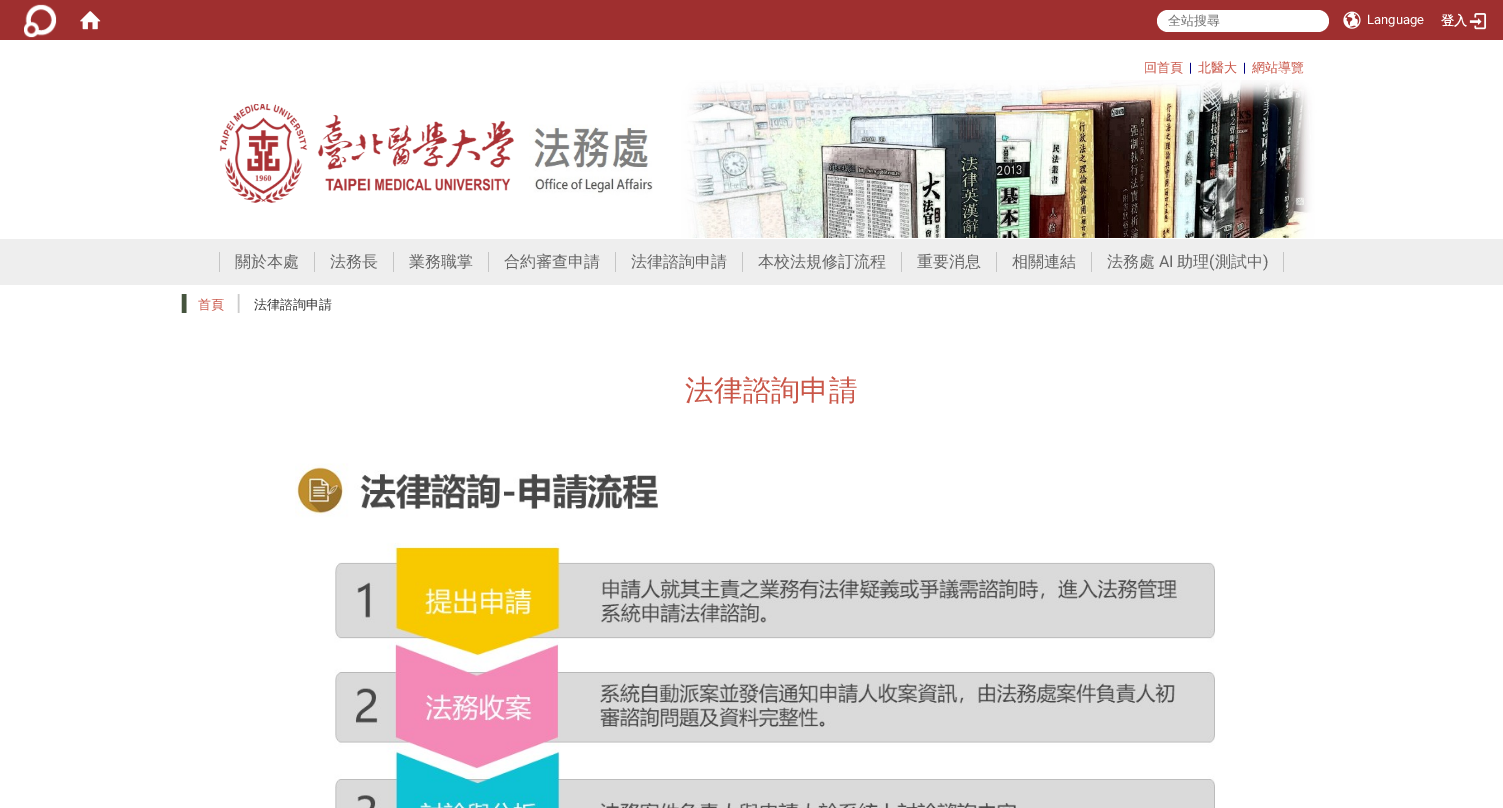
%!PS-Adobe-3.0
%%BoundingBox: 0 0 1503 808
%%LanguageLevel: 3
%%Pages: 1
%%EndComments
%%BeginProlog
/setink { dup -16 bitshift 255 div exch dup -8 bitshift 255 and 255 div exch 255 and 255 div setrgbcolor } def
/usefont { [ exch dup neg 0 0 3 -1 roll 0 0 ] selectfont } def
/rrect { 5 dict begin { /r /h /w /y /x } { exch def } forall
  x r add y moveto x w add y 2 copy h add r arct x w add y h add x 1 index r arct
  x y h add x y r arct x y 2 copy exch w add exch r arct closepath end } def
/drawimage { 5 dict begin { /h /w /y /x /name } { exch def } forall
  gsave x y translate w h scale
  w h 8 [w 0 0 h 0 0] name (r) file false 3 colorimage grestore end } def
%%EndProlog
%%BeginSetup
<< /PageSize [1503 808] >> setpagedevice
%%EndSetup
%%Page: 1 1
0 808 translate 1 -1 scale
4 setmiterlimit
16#FFFFFF setink
0 0 1503 808 rectfill
16#9F2F2F setink
0 0 1503 40 rectfill
(img1.raw) 24 4 33 34 drawimage
(img2.raw) 80 11 21 19 drawimage
16#FFFFFF setink
1157 10 172 22 11 rrect fill
/WenQuanYiZenHei-Medium 13 usefont
16#757575 setink
1168 25 moveto (全站搜尋) show
(img3.raw) 1343 11 18 18 drawimage
/Roboto-Regular 13 usefont
16#FFFFFF setink
1367 24 moveto (Language) show
/WenQuanYiZenHei-Bold 13 usefont
1441 25 moveto (登入) show
(img4.raw) 1469 13 18 17 drawimage
/WenQuanYiZenHei-Medium 13 usefont
16#C95648 setink
1144 72 moveto (回首頁) show
/Roboto-Regular 13 usefont
16#000080 setink
1189 72 moveto (|) show
/WenQuanYiZenHei-Medium 13 usefont
16#C95648 setink
1198 72 moveto (北醫大) show
/Roboto-Regular 13 usefont
16#000080 setink
1243 72 moveto (|) show
/WenQuanYiZenHei-Medium 13 usefont
16#C95648 setink
1252 72 moveto (網站導覽) show
(img5.raw) 219 104 434 99 drawimage
(img6.raw) 667 80 650 158 drawimage
[
    [0 239 1503 46 16#EEEEEE]
    [314 252 1 20 16#C5C5C5]
    [219 252 1 20 16#C5C5C5]
] { aload pop setink rectfill } forall
/WenQuanYiZenHei-Medium 16 usefont
16#666666 setink
235 267 moveto (關於本處) show
16#C5C5C5 setink
393 252 1 20 rectfill
16#666666 setink
330 267 moveto (法務長) show
16#C5C5C5 setink
488 252 1 20 rectfill
16#666666 setink
409 267 moveto (業務職掌) show
16#C5C5C5 setink
615 252 1 20 rectfill
16#666666 setink
504 267 moveto (合約審查申請) show
16#C5C5C5 setink
742 252 1 20 rectfill
16#666666 setink
631 267 moveto (法律諮詢申請) show
16#C5C5C5 setink
901 252 1 20 rectfill
16#666666 setink
758 267 moveto (本校法規修訂流程) show
16#C5C5C5 setink
996 252 1 20 rectfill
16#666666 setink
917 267 moveto (重要消息) show
16#C5C5C5 setink
1091 252 1 20 rectfill
16#666666 setink
1012 267 moveto (相關連結) show
16#C5C5C5 setink
1283 252 1 20 rectfill
16#666666 setink
1107 267 moveto (法務處) show
/Roboto-Regular 16 usefont
1159 267 moveto (AI) show
/WenQuanYiZenHei-Medium 16 usefont
1177 267 moveto (助理) show
/Roboto-Regular 16 usefont
1209 267 moveto (\() show
/WenQuanYiZenHei-Medium 16 usefont
1215 267 moveto (測試中) show
/Roboto-Regular 16 usefont
1263 267 moveto (\)) show
/DejaVuSans-Regular 16 usefont
16#45543D setink
182 309 moveto (▍) show
/WenQuanYiZenHei-Medium 13 usefont
16#C95648 setink
198 309 moveto (首頁) show
/DejaVuSans-Regular 16 usefont
16#CCCCCC setink
238 309 moveto (▏) show
/WenQuanYiZenHei-Medium 13 usefont
16#363636 setink
254 309 moveto (法律諮詢申請) show
/WenQuanYiZenHei-Medium 28.75 usefont
16#C95648 setink
685 400 moveto (法律諮詢申請) show
(img7.raw) 295 463 920 345 drawimage
showpage
%%EOF
